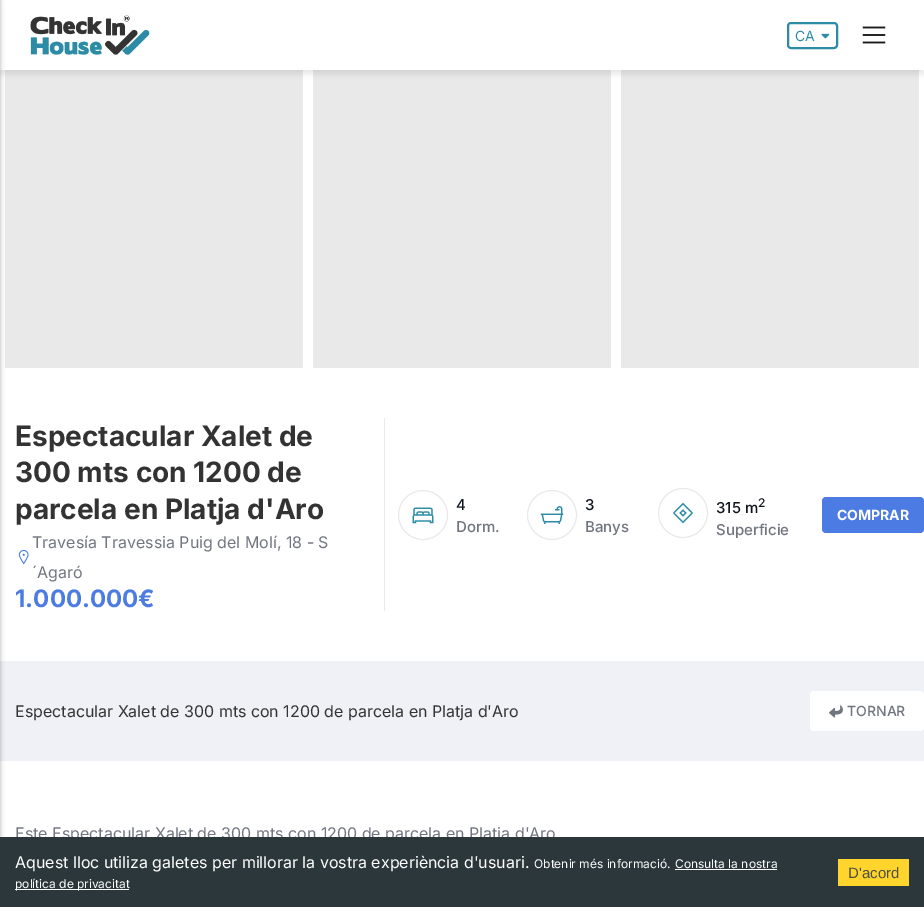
%!PS-Adobe-3.0
%%BoundingBox: 0 0 924 907
%%LanguageLevel: 3
%%Pages: 1
%%EndComments
%%BeginProlog
/setink { dup -16 bitshift 255 div exch dup -8 bitshift 255 and 255 div exch 255 and 255 div setrgbcolor } def
/usefont { [ exch dup neg 0 0 3 -1 roll 0 0 ] selectfont } def
/setalpha { dup .setfillconstantalpha .setstrokeconstantalpha } def
/disc { newpath 0 360 arc closepath } def
/rrect { 5 dict begin { /r /h /w /y /x } { exch def } forall
  x r add y moveto x w add y 2 copy h add r arct x w add y h add x 1 index r arct
  x y h add x y r arct x y 2 copy exch w add exch r arct closepath end } def
/softshadow { 12 dict begin { /a /b /q /h /w /y /x } { exch def } forall gsave /was 0 def
  9 -2 -9 { dup b mul 4 div /e exch def 1 sub .425 mul 2.718 exch exp 1 add a .99 .min exch div /now exch def
    1 1 now sub 1 was sub div sub setalpha /was now def
    w h .min e 2 mul add 0 gt { x e sub y e sub w e 2 mul add h e 2 mul add
      q e add b .6 mul add w h .min 2 div e add .min 0 .max rrect fill } if } for grestore end } def
/drawimage { 5 dict begin { /h /w /y /x /name } { exch def } forall
  gsave x y translate w h scale
  w h 8 [w 0 0 h 0 0] name (r) file false 3 colorimage grestore end } def
%%EndProlog
%%BeginSetup
<< /PageSize [924 907] /PageUsesTransparency true >> setpagedevice
%%EndSetup
%%Page: 1 1
0 .pushpdf14devicefilter
0 907 translate 1 -1 scale
4 setmiterlimit
16#FFFFFF setink
0 0 924 907 rectfill
[
    [5 70 298 298 16#E9E9E9]
    [313 70 298 298 16#E9E9E9]
    [621 70 298 298 16#E9E9E9]
] { aload pop setink rectfill } forall
16#000000 setink
0 4 924 70 0 3 0.1 softshadow
16#FFFFFF setink
0 0 924 70 rectfill
16#EFF1F6 setink
0 661 924 100 rectfill
16#000000 setink
-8 0 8 907 0 2.5 0.3 softshadow
(img1.raw) 30 15 120 40 drawimage
16#2C8CA5 setink
2 setlinewidth
788 23 49 25 3 rrect stroke
/Inter-Regular 14 usefont
795 41 moveto (CA) show
(img2.raw) 821 33 9 6 drawimage
(img3.raw) 862 26 24 18 drawimage
16#E9E9E9 setink
384 418 1 193 rectfill
/Inter-Bold 28 usefont
16#333333 setink
[
    [(Espectacular Xalet de) 15 446]
    [(300 mts con 1200 de) 15 482]
    [(parcela en Platja d'Aro) 15 519]
] { aload pop moveto show } forall
(img4.raw) 18 549 11 16 drawimage
/Inter-Regular 16 usefont
16#717580 setink
32 548 moveto (Travesía Travessia Puig del Molí, 18 - S) show
32 578 moveto (´Agaró) show
/Inter-Bold 24 usefont
16#4C7CE3 setink
15 607 moveto (1.000.000€) show
16#E9E9E9 setink
1 setlinewidth
423 515 24.5 disc stroke
(img5.raw) 412 507 22 17 drawimage
/Inter-Medium 15 usefont
16#11161F setink
456 510 moveto (4) show
16#717580 setink
456 532 moveto (Dorm.) show
16#E9E9E9 setink
552 515 24.5 disc stroke
(img6.raw) 540 506 24 18 drawimage
16#11161F setink
585 510 moveto (3) show
16#717580 setink
585 532 moveto (Banys) show
16#E9E9E9 setink
683 513 24.5 disc stroke
(img7.raw) 673 502 20 22 drawimage
16#11161F setink
716 513 moveto (315 m) show
/Inter-Medium 12 usefont
758 507 moveto (2) show
/Inter-Medium 15 usefont
16#717580 setink
716 535 moveto (Superficie) show
16#4C7CE3 setink
822 497 102 36 4 rrect fill
/Inter-Bold 14 usefont
16#FFFFFF setink
837 520 moveto (COMPRAR) show
/Inter-Regular 16 usefont
16#333333 setink
15 717 moveto (Espectacular Xalet de 300 mts con 1200 de parcela en Platja d'Aro) show
16#FFFFFF setink
810 691 114 40 4 rrect fill
(img8.raw) 829 705 14 13 drawimage
/Inter-Medium 14 usefont
16#717580 setink
847 716 moveto (TORNAR) show
/Inter-Regular 16 usefont
15 839 moveto (Este Espectacular Xalet de 300 mts con 1200 de parcela en Platja d'Aro) show
16#2B373B setink
0 837 924 70 rectfill
16#FFFFFF setink
15 868 moveto (Aquest lloc utiliza galetes per millorar la vostra experiència d'usuari.) show
/Inter-Regular 12 usefont
534 868 moveto (Obtenir més informació.) show
675 868 moveto (Consulta la nostra) show
675 869 102 1 rectfill
15 889 114 1 rectfill
15 888 moveto (política de privacitat) show
16#FFD42D setink
838 859 71 27 rectfill
/LiberationSans-Regular 15 usefont
16#4E503B setink
848 878 moveto (D'acord) show
.poppdf14devicefilter showpage
%%EOF
